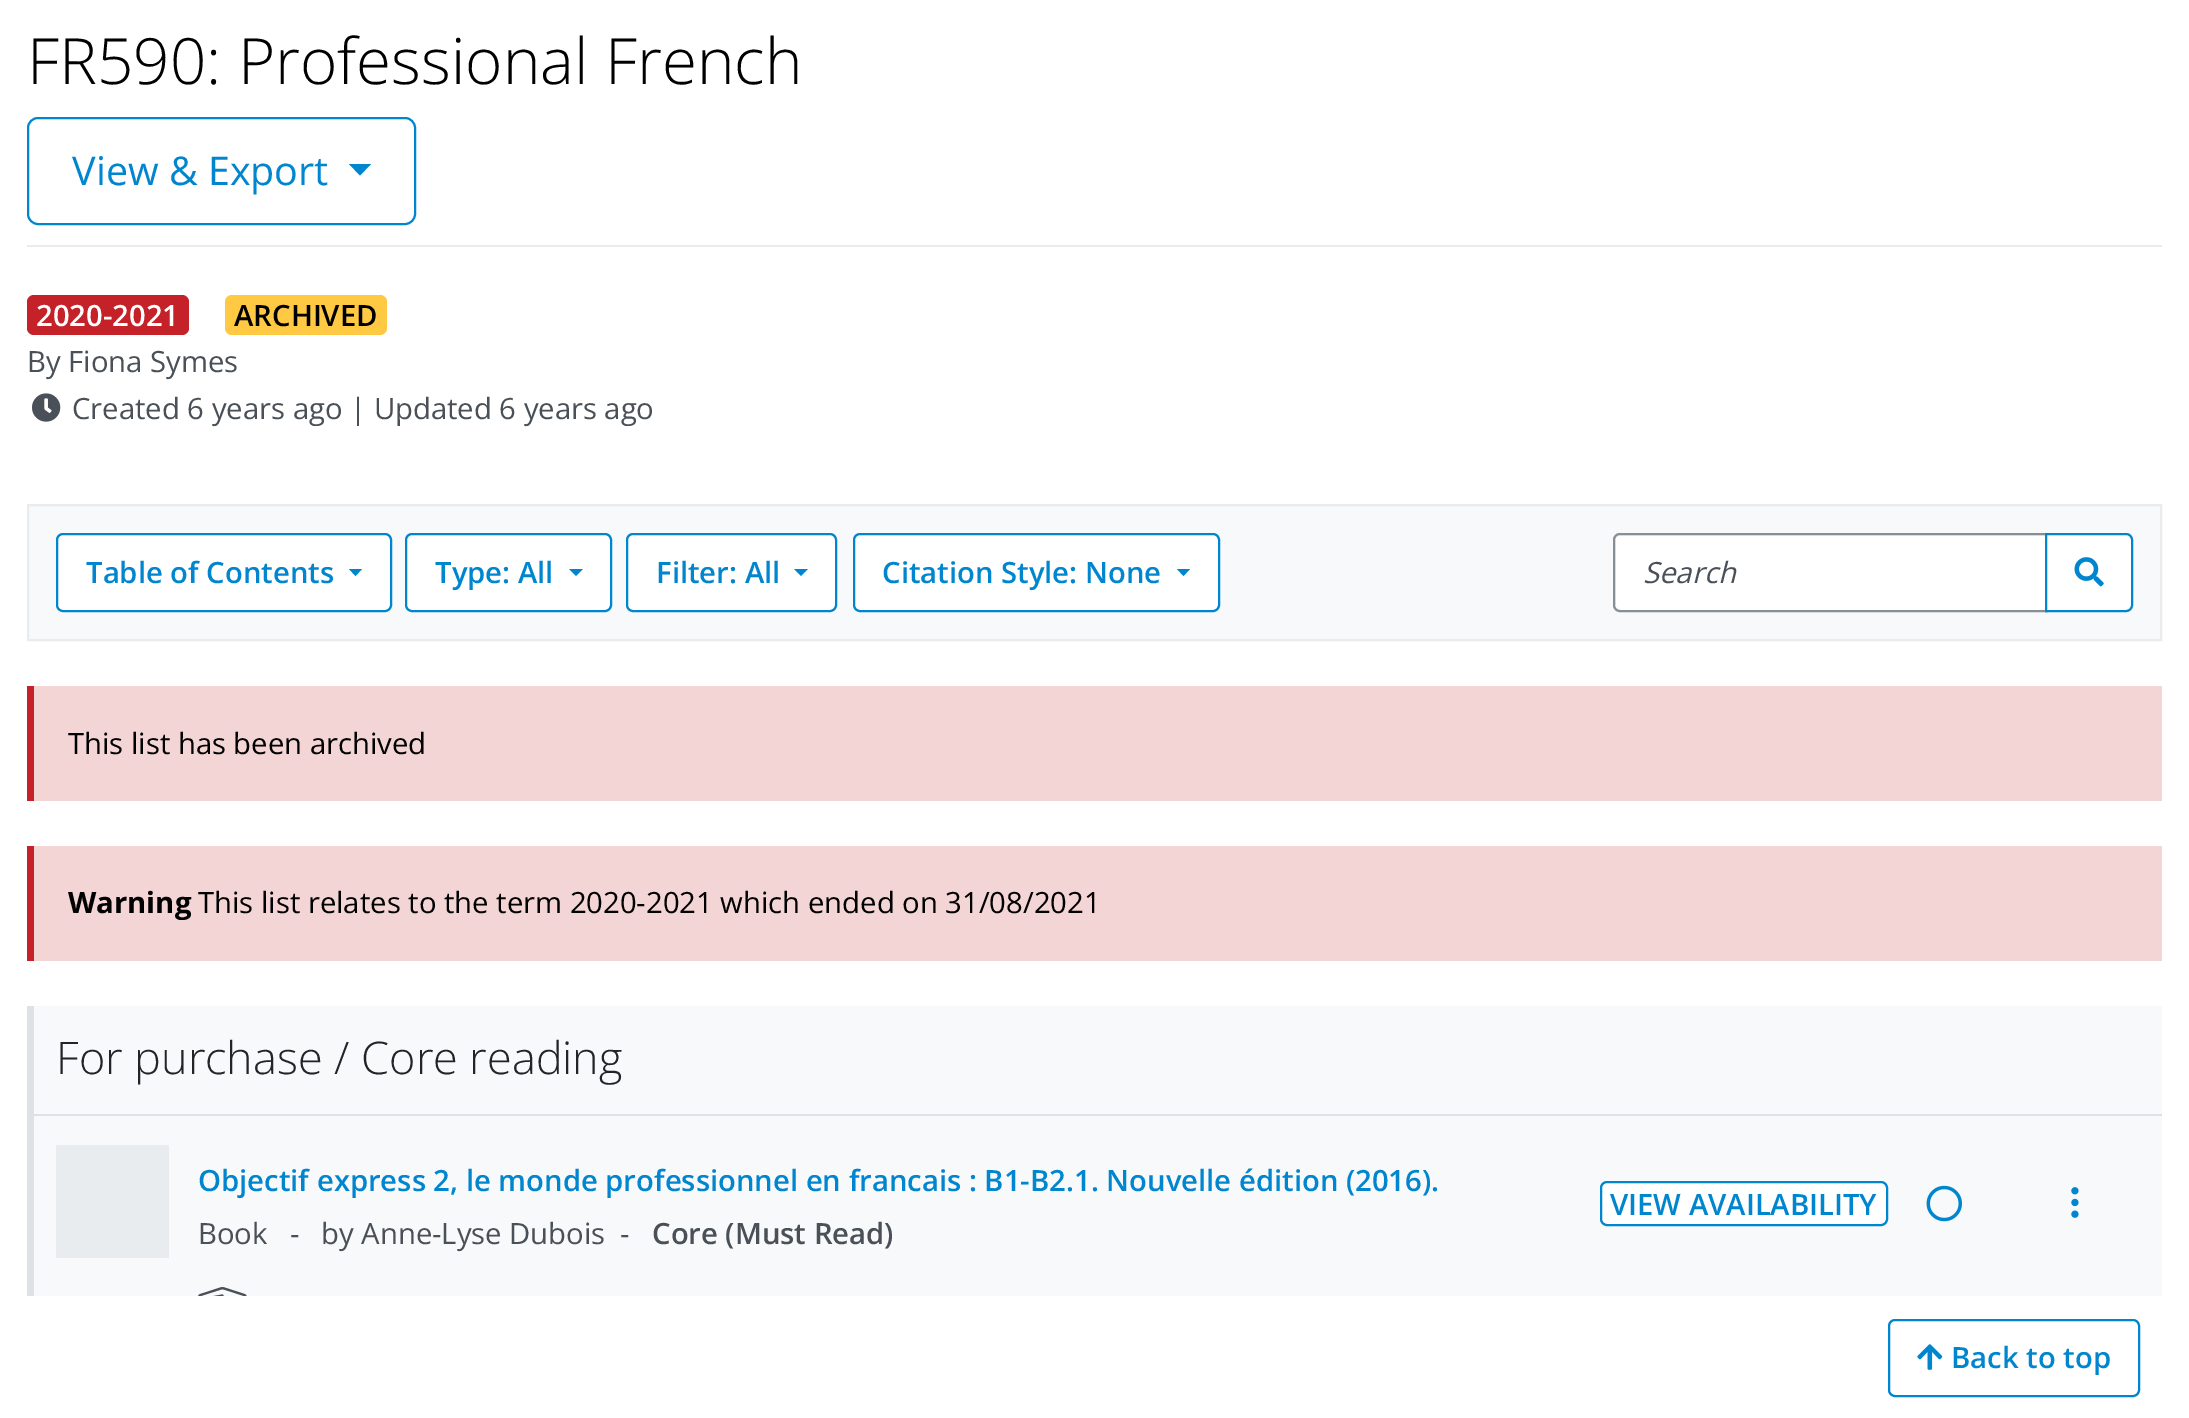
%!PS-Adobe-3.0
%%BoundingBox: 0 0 2189 1418
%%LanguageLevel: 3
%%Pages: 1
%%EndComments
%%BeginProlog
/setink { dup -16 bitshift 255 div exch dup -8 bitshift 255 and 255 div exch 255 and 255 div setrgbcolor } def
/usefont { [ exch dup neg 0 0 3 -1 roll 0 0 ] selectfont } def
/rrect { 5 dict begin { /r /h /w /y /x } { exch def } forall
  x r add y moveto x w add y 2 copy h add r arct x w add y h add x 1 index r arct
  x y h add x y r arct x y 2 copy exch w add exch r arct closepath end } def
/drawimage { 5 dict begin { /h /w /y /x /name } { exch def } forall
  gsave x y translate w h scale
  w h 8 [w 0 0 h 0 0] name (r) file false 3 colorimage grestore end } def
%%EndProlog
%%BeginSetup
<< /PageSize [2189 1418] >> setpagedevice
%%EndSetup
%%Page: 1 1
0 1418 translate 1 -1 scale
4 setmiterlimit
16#FFFFFF setink
0 0 2189 1418 rectfill
16#E9ECEF setink
27 245 2135 2 rectfill
/OpenSans-Light 63.75 usefont
16#000000 setink
27 84 moveto (FR590: Professional French) show
16#0085CF setink
2 setlinewidth
28 118 387 106 10 rrect stroke
/OpenSans-Regular 39.5 usefont
72 185 moveto (View & Export) show
349 164 moveto 371 164 lineto 360 175.5 lineto closepath fill
16#C42129 setink
27 295 162 40 7 rrect fill
/OpenSans-SemiBold 29.25 usefont
16#FFFFFF setink
36 326 moveto (2020-2021) show
16#FFC943 setink
225 295 162 40 7 rrect fill
16#000000 setink
234 326 moveto (ARCHIVED) show
/OpenSans-Regular 29.25 usefont
16#495057 setink
27 372 moveto (By Fiona Symes) show
(img1.raw) 32 393 29 29 drawimage
72 419 moveto (Created 6 years ago | Updated 6 years ago) show
16#F8F9FA setink
28 505 moveto 2161 505 lineto 2161 640 lineto 28 640 lineto closepath gsave fill grestore
16#E9ECEF setink
stroke
16#FFFFFF setink
57 534 334 77 6 rrect gsave fill grestore
16#0085CF setink
stroke
/OpenSans-SemiBold 29.25 usefont
86 583 moveto (Table of Contents) show
349 569 moveto 362 569 lineto 355.5 576 lineto closepath fill
16#FFFFFF setink
406 534 205 77 6 rrect gsave fill grestore
16#0085CF setink
stroke
435 583 moveto (Type: All) show
569 569 moveto 583 569 lineto 576 576 lineto closepath fill
16#FFFFFF setink
627 534 209 77 6 rrect gsave fill grestore
16#0085CF setink
stroke
656 583 moveto (Filter: All) show
794 569 moveto 808 569 lineto 801 576 lineto closepath fill
16#FFFFFF setink
854 534 365 77 6 rrect gsave fill grestore
16#0085CF setink
stroke
882 583 moveto (Citation Style: None) show
1177 569 moveto 1190 569 lineto 1183.5 576 lineto closepath fill
16#FFFFFF setink
1621 536 moveto 2045 536 lineto 2045 610 lineto 1621 610 lineto 1618 610 1616 608 1616 605 curveto 1616 541 lineto 1616 538 1618 536 1621 536 curveto closepath fill
16#868E96 setink
1620 534 moveto 2047 534 lineto 2047 611 lineto 1620 611 lineto 1616.5 611 1614 608.5 1614 605 curveto 1614 540 lineto 1614 536.5 1616.5 534 1620 534 curveto closepath stroke
/OpenSans-Italic 29.25 usefont
16#495057 setink
1643 583 moveto (Search) show
16#FFFFFF setink
2046 534 moveto 2126 534 lineto 2129.5 534 2132 536.5 2132 540 curveto 2132 605 lineto 2132 608.5 2129.5 611 2126 611 curveto 2046 611 lineto closepath gsave fill grestore
16#0085CF setink
stroke
(img2.raw) 2074 557 30 30 drawimage
16#F3D5D5 setink
34 686 2128 115 rectfill
16#C42129 setink
27 686 7 115 rectfill
/OpenSans-Regular 29.25 usefont
16#000000 setink
68 754 moveto (This list has been archived) show
16#F3D5D5 setink
34 846 2128 115 rectfill
16#C42129 setink
27 846 7 115 rectfill
/OpenSans-Bold 29.25 usefont
16#000000 setink
68 913 moveto (Warning) show
/OpenSans-Regular 29.25 usefont
198 913 moveto (This list relates to the term 2020-2021 which ended on 31/08/2021) show
[
    [34 1006 2128 290 16#F8F9FA]
    [27 1006 7 290 16#DEE2E6]
    [27 1114 2135 2 16#DEE2E6]
] { aload pop setink rectfill } forall
/OpenSans-Light 45 usefont
16#212529 setink
56 1074 moveto (For purchase / Core reading) show
16#E9ECEF setink
56 1145 113 113 rectfill
/OpenSans-SemiBold 29.25 usefont
16#0085CF setink
198 1191 moveto (Objectif express 2, le monde professionnel en francais : B1-B2.1. Nouvelle édition \(2016\).) show
/OpenSans-Regular 29.25 usefont
16#495057 setink
[
    [(Book) 198 1244]
    [(-) 290 1244]
    [(by Anne-Lyse Dubois) 321 1244]
    [(-) 620 1244]
] { aload pop moveto show } forall
/OpenSans-SemiBold 29.25 usefont
652 1244 moveto (Core \(Must Read\)) show
16#FFFFFF setink
1601 1182 286 43 6 rrect gsave fill grestore
16#0085CF setink
stroke
1610 1215 moveto (VIEW AVAILABILITY) show
(img3.raw) 1926 1185 36 37 drawimage
(img4.raw) 2071 1187 8 31 drawimage
(img5.raw) 198 1287 49 9 drawimage
1889 1320 250 76 6 rrect stroke
(img6.raw) 1917 1344 26 26 drawimage
1951 1368 moveto (Back to top) show
showpage
%%EOF
